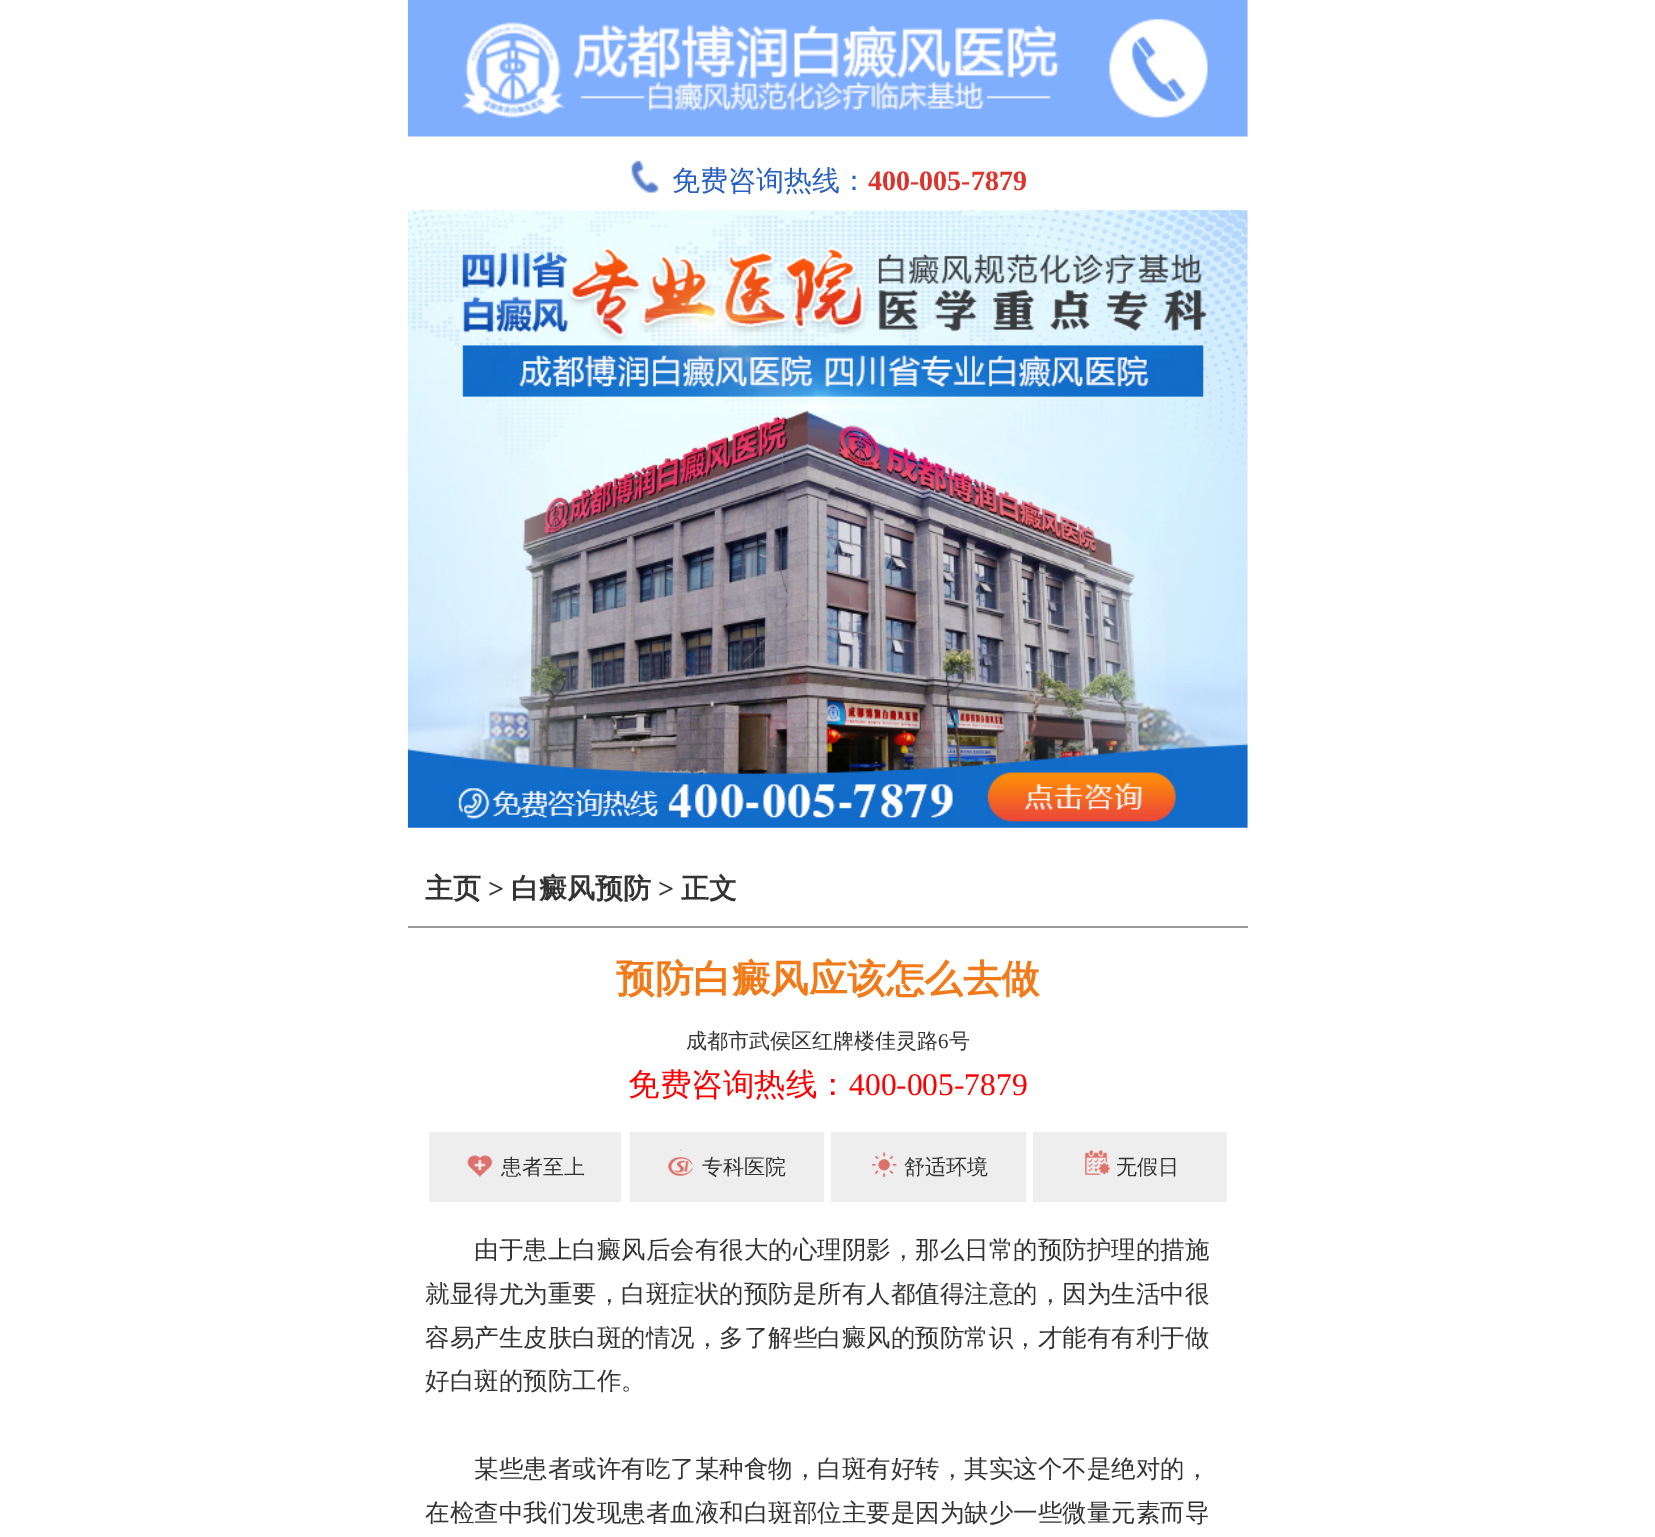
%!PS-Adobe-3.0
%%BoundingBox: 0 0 1655 1537
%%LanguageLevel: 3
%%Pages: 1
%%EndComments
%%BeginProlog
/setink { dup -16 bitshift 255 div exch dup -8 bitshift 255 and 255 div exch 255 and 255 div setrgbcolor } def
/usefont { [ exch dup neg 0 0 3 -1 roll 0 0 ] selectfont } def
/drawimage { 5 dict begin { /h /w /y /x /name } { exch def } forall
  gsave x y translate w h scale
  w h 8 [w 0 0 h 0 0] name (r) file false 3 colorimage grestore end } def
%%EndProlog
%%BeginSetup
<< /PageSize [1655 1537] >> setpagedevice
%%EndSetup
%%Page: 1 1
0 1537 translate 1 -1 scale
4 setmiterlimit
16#FFFFFF setink
0 0 1655 1537 rectfill
(img1.raw) 407 0 841 137 drawimage
(img2.raw) 631 160 28 33 drawimage
/WenQuanYiZenHei-Medium 28 usefont
16#2760C1 setink
672 190 moveto (免费咨询热线：) show
/LiberationSerif-Bold 28 usefont
16#DC332C setink
868 190 moveto (400-005-7879) show
(img3.raw) 407 210 841 618 drawimage
16#999999 setink
408 926 840 2 rectfill
/WenQuanYiZenHei-Bold 28 usefont
16#333333 setink
425 898 moveto (主页) show
/LiberationSerif-Bold 28 usefont
488 898 moveto (>) show
/WenQuanYiZenHei-Bold 28 usefont
511 898 moveto (白癜风预防) show
/LiberationSerif-Bold 28 usefont
658 898 moveto (>) show
/WenQuanYiZenHei-Bold 28 usefont
681 898 moveto (正文) show
/WenQuanYiZenHei-Bold 38.5 usefont
16#F27A19 setink
616 992 moveto (预防白癜风应该怎么去做) show
/WenQuanYiZenHei-Medium 21 usefont
16#333333 setink
686 1048 moveto (成都市武侯区红牌楼佳灵路) show
/LiberationSerif-Regular 21 usefont
938 1048 moveto (6) show
/WenQuanYiZenHei-Medium 21 usefont
949 1048 moveto (号) show
/WenQuanYiZenHei-Medium 31.5 usefont
16#FF0000 setink
628 1095 moveto (免费咨询热线：) show
/LiberationSerif-Regular 31.5 usefont
849 1095 moveto (400-005-7879) show
16#EEEEEE setink
429 1132 192 70 rectfill
(img4.raw) 467 1155 25 22 drawimage
/WenQuanYiZenHei-Medium 21 usefont
16#333333 setink
501 1174 moveto (患者至上) show
16#EEEEEE setink
630 1132 194 70 rectfill
(img5.raw) 668 1149 25 27 drawimage
16#333333 setink
702 1174 moveto (专科医院) show
16#EEEEEE setink
831 1132 195 70 rectfill
(img6.raw) 871 1152 26 25 drawimage
16#333333 setink
904 1174 moveto (舒适环境) show
16#EEEEEE setink
1033 1132 194 70 rectfill
(img7.raw) 1085 1150 25 25 drawimage
16#333333 setink
1116 1174 moveto (无假日) show
/WenQuanYiZenHei-Medium 24.5 usefont
[
    [(由于患上白癜风后会有很大的心理阴影，那么日常的预防护理的措施) 474 1258]
    [(就显得尤为重要，白斑症状的预防是所有人都值得注意的，因为生活中很) 425 1302]
    [(容易产生皮肤白斑的情况，多了解些白癜风的预防常识，才能有有利于做) 425 1346]
    [(好白斑的预防工作。) 425 1389]
    [(某些患者或许有吃了某种食物，白斑有好转，其实这个不是绝对的，) 474 1477]
    [(在检查中我们发现患者血液和白斑部位主要是因为缺少一些微量元素而导) 425 1521]
] { aload pop moveto show } forall
showpage
%%EOF
